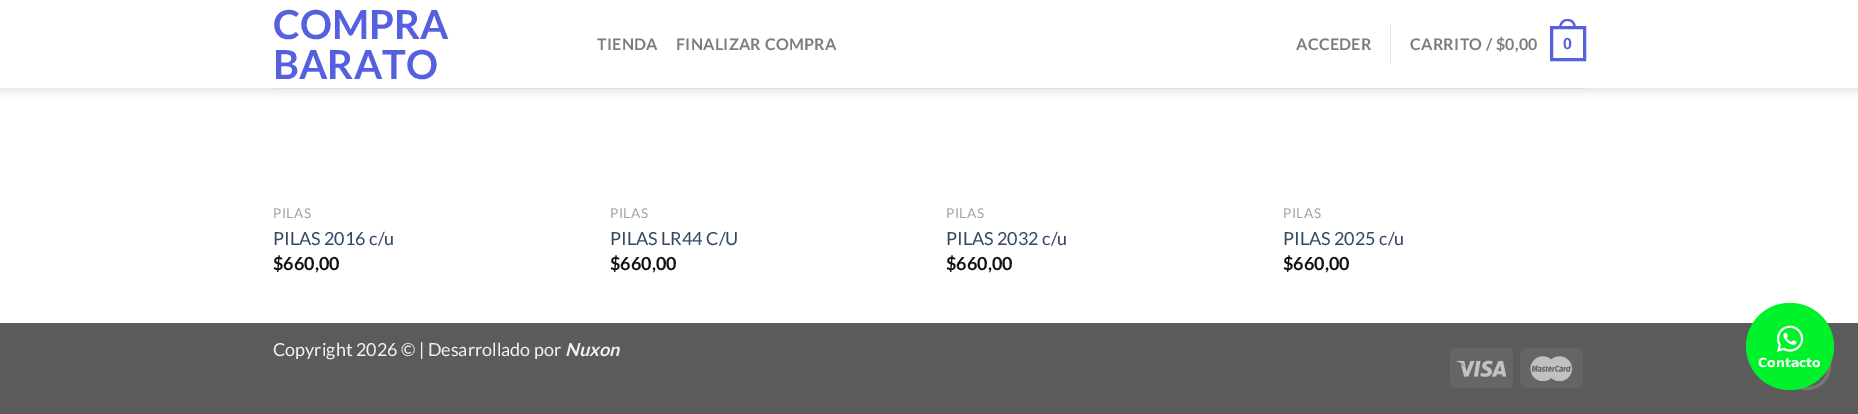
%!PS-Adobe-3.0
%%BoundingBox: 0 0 1858 414
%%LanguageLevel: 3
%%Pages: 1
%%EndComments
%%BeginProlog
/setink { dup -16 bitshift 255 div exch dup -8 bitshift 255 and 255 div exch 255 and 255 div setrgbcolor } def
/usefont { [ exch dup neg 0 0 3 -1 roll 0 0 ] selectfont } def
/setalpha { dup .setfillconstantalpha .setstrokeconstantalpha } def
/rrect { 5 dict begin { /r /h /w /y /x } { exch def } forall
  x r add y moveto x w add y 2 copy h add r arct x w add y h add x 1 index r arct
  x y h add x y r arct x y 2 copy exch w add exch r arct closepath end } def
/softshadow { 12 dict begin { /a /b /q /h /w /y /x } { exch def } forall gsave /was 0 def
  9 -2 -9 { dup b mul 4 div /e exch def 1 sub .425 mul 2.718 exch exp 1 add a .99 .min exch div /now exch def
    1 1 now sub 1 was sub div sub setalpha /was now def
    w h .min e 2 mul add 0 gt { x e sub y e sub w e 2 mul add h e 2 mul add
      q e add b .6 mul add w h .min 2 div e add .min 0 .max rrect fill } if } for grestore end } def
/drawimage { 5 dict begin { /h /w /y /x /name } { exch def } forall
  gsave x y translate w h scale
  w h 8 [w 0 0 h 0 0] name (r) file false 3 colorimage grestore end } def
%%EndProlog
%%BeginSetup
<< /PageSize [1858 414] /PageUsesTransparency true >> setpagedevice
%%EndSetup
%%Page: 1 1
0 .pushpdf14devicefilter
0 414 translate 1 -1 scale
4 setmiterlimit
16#FFFFFF setink
0 0 1858 414 rectfill
gsave
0 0 moveto 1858 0 lineto 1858 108 lineto 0 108 lineto closepath 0 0 moveto 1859 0 lineto 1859 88 lineto 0 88 lineto closepath eoclip newpath
16#000000 setink
1 1 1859 88 0 6 0.15 softshadow
grestore
/Lato-Bold 40 usefont
16#5460DD setink
273 39 moveto (COMPRA) show
273 79 moveto (BARATO) show
/Lato-Bold 16 usefont
16#7D7D7D setink
597 50 moveto 0.3 0 (TIENDA) ashow
676 50 moveto 0.3 0 (FINALIZAR COMPRA) ashow
1296 50 moveto 0.3 0 (ACCEDER) ashow
16#E6E6E6 setink
1390 25 1 38 rectfill
16#7D7D7D setink
1410 50 moveto 0.3 0 (CARRITO / $0,00) ashow
16#5460DD setink
3 setlinewidth
1551.5 27.5 33 32 rectstroke
1567.5 19 moveto 1573.5 19 1576 23.5 1576 29 curveto 1559 29 lineto 1559 23.5 1561.5 19 1567.5 19 curveto closepath 1567.5 21 moveto 1572 21 1574 25 1574 29 curveto 1561 29 lineto 1561 25 1563 21 1567.5 21 curveto closepath eofill
/LiberationSans-Bold 16 usefont
1563 49 moveto 0.3 0 (0) ashow
16#DFDFDF setink
274 88 1312 1 rectfill
0.9 setalpha
16#FFFFFF setink
0 87 1858 1 rectfill
/Lato-Regular 13.5 usefont
1 setalpha
16#A0A0A0 setink
273 218 moveto 0.5 0 (PILAS) ashow
/Lato-Regular 18 usefont
16#334862 setink
273 245 moveto (PILAS 2016 c/u) show
/Lato-Bold 18 usefont
16#111111 setink
273 270 moveto ($660,00) show
/Lato-Regular 13.5 usefont
16#A0A0A0 setink
610 218 moveto 0.5 0 (PILAS) ashow
/Lato-Regular 18 usefont
16#334862 setink
610 245 moveto (PILAS LR44 C/U) show
/Lato-Bold 18 usefont
16#111111 setink
610 270 moveto ($660,00) show
/Lato-Regular 13.5 usefont
16#A0A0A0 setink
946 218 moveto 0.5 0 (PILAS) ashow
/Lato-Regular 18 usefont
16#334862 setink
946 245 moveto (PILAS 2032 c/u) show
/Lato-Bold 18 usefont
16#111111 setink
946 270 moveto ($660,00) show
/Lato-Regular 13.5 usefont
16#A0A0A0 setink
1283 218 moveto 0.5 0 (PILAS) ashow
/Lato-Regular 18 usefont
16#334862 setink
1283 245 moveto (PILAS 2025 c/u) show
/Lato-Bold 18 usefont
16#111111 setink
1283 270 moveto ($660,00) show
16#5B5B5B setink
0 323 1858 91 rectfill
/Lato-Regular 18 usefont
16#F1F1F1 setink
273 356 moveto (Copyright 2026 © | Desarrollado por) show
/Lato-BoldItalic 18 usefont
565 356 moveto (Nuxon) show
16#656565 setink
1450 348 63 40 6 rrect fill
(img1.raw) 1456 360 50 17 drawimage
1520 348 63 40 6 rrect fill
(img2.raw) 1530 356 43 25 drawimage
16#777777 setink
1784.5 342.5 45 46 22.5 rrect stroke
16#00F22A setink
1746 303 88 87 43.5 rrect fill
(img3.raw) 1776 325 28 27 drawimage
/DejaVuSans-Bold 12.5 usefont
16#FFFFFF setink
1758 367 moveto (Contacto) show
.poppdf14devicefilter showpage
%%EOF
